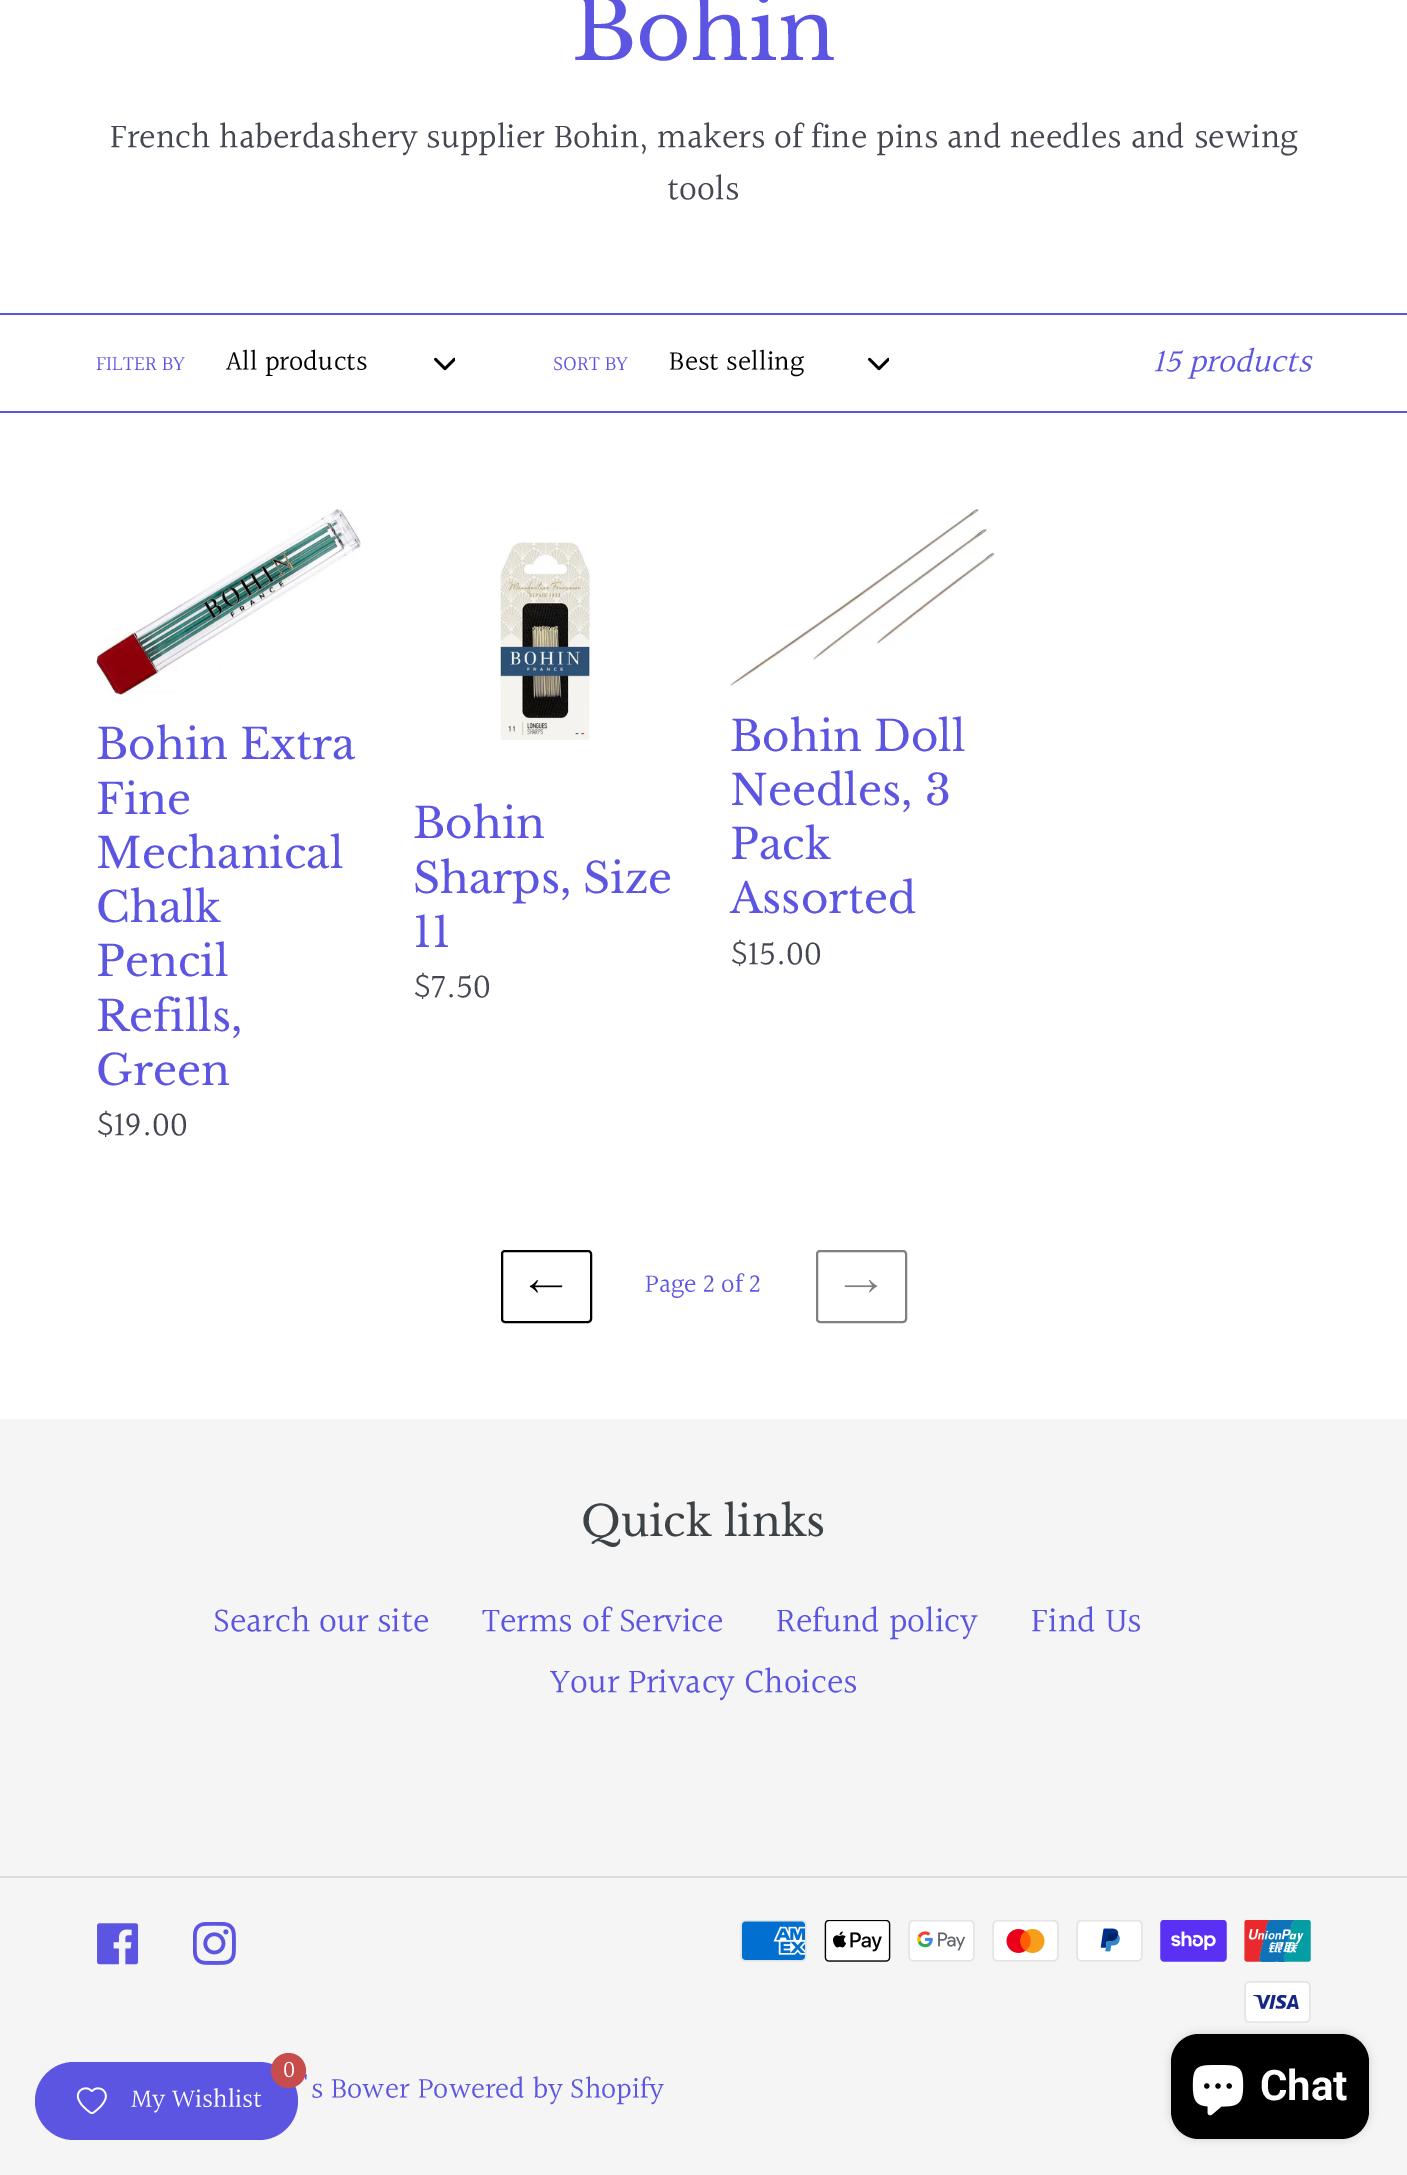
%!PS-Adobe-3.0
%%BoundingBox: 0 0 1407 2175
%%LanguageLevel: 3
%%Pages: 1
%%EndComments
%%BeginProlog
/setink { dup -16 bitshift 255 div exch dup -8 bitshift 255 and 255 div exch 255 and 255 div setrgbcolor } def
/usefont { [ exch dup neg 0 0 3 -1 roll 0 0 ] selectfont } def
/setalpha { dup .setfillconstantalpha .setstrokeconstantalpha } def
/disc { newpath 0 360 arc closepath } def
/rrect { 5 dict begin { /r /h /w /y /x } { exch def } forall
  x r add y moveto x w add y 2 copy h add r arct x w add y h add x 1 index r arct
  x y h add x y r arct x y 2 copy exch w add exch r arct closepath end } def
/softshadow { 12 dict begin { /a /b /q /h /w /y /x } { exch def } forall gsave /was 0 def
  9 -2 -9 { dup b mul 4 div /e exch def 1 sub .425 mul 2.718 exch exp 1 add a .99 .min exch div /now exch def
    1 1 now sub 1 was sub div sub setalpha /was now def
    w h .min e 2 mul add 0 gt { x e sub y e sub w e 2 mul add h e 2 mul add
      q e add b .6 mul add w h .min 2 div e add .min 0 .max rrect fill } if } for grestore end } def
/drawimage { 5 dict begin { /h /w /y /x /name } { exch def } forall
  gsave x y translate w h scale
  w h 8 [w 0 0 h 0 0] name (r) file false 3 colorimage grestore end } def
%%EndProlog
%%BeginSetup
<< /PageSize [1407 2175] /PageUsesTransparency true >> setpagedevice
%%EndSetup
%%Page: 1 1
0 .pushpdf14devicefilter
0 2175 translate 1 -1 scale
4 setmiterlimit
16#FFFFFF setink
0 0 1407 2175 rectfill
/LibreBaskerville-Regular 84 usefont
16#5C55E2 setink
572 60 moveto (Bohin) show
/Halant-Regular 35 usefont
16#444651 setink
110 149 moveto (French haberdashery supplier Bohin, makers of fine pins and needles and sewing) show
667 201 moveto (tools) show
16#5C55E2 setink
0 313 1407 2 rectfill
0 411 1407 2 rectfill
/Halant-Regular 21 usefont
96 371 moveto (FILTER BY) show
/Halant-Regular 28 usefont
16#000000 setink
226 371 moveto (All products) show
(img1.raw) 434 357 21 14 drawimage
/Halant-Regular 21 usefont
16#5C55E2 setink
553 371 moveto (SORT BY) show
/Halant-Regular 28 usefont
16#000000 setink
669 371 moveto (Best selling) show
(img1.raw) 868 357 21 14 drawimage
/Halant-Italic 33.25 usefont
16#5C55E2 setink
1153 373 moveto (15 products) show
(img2.raw) 96 509 265 186 drawimage
/LibreBaskerville-Regular 42 usefont
[
    [(Bohin Extra) 96 759]
    [(Fine) 96 814]
    [(Mechanical) 96 868]
    [(Chalk) 96 922]
    [(Pencil) 96 976]
    [(Refills,) 96 1031]
    [(Green) 96 1085]
] { aload pop moveto show } forall
/Halant-Regular 35 usefont
16#444651 setink
96 1137 moveto ($19.00) show
(img3.raw) 498 541 94 199 drawimage
/LibreBaskerville-Regular 42 usefont
16#5C55E2 setink
[
    [(Bohin) 413 838]
    [(Sharps, Size) 413 893]
    [(11) 413 947]
] { aload pop moveto show } forall
/Halant-Regular 35 usefont
16#444651 setink
413 999 moveto ($7.50) show
(img4.raw) 729 509 265 177 drawimage
/LibreBaskerville-Regular 42 usefont
16#5C55E2 setink
[
    [(Bohin Doll) 730 751]
    [(Needles, 3) 730 805]
    [(Pack) 730 859]
    [(Assorted) 730 913]
] { aload pop moveto show } forall
/Halant-Regular 35 usefont
16#444651 setink
730 966 moveto ($15.00) show
16#000000 setink
2 setlinewidth
502 1251 89 71 3 rrect stroke
(img5.raw) 529 1280 34 13 drawimage
/Halant-Regular 26.25 usefont
16#5C55E2 setink
645 1293 moveto (Page 2 of 2) show
16#808080 setink
817 1251 89 71 3 rrect stroke
(img6.raw) 844 1280 34 13 drawimage
16#F5F5F5 setink
0 1419 1407 756 rectfill
/LibreBaskerville-Regular 42 usefont
16#3D4246 setink
581 1536 moveto (Quick links) show
/Halant-Regular 35 usefont
16#5C55E2 setink
[
    [(Search our site) 213 1633]
    [(Terms of Service) 482 1633]
    [(Refund policy) 776 1633]
    [(Find Us) 1031 1633]
    [(Your Privacy Choices) 550 1694]
] { aload pop moveto show } forall
16#DCDCDC setink
0 1876 1407 2 rectfill
(img7.raw) 97 1923 42 42 drawimage
(img8.raw) 193 1922 43 43 drawimage
(img9.raw) 740 1920 67 42 drawimage
(img10.raw) 824 1920 67 42 drawimage
(img11.raw) 908 1920 67 42 drawimage
(img12.raw) 992 1920 67 42 drawimage
(img13.raw) 1076 1920 67 42 drawimage
(img14.raw) 1160 1920 67 42 drawimage
(img15.raw) 1244 1920 67 42 drawimage
(img16.raw) 1244 1981 67 42 drawimage
/Halant-Regular 29.75 usefont
16#5C55E2 setink
300 2099 moveto ('s Bower) show
418 2099 moveto (Powered by Shopify) show
35 2062 263 78 39 rrect fill
16#C74D4D setink
288.5 2070.5 17.5 disc fill
/Halant-Regular 24 usefont
16#FFFFFF setink
283 2078 moveto (0) show
(img17.raw) 76 2087 31 27 drawimage
/Halant-Regular 26.25 usefont
131 2108 moveto (My Wishlist) show
16#000000 setink
1171 2034 198 105 28 4.5 0.15 softshadow
1171 2034 198 105 28 rrect fill
(img18.raw) 1192 2065 52 51 drawimage
/Roboto-Bold 42 usefont
16#FFFFFF setink
1260 2100 moveto (Chat) show
.poppdf14devicefilter showpage
%%EOF
